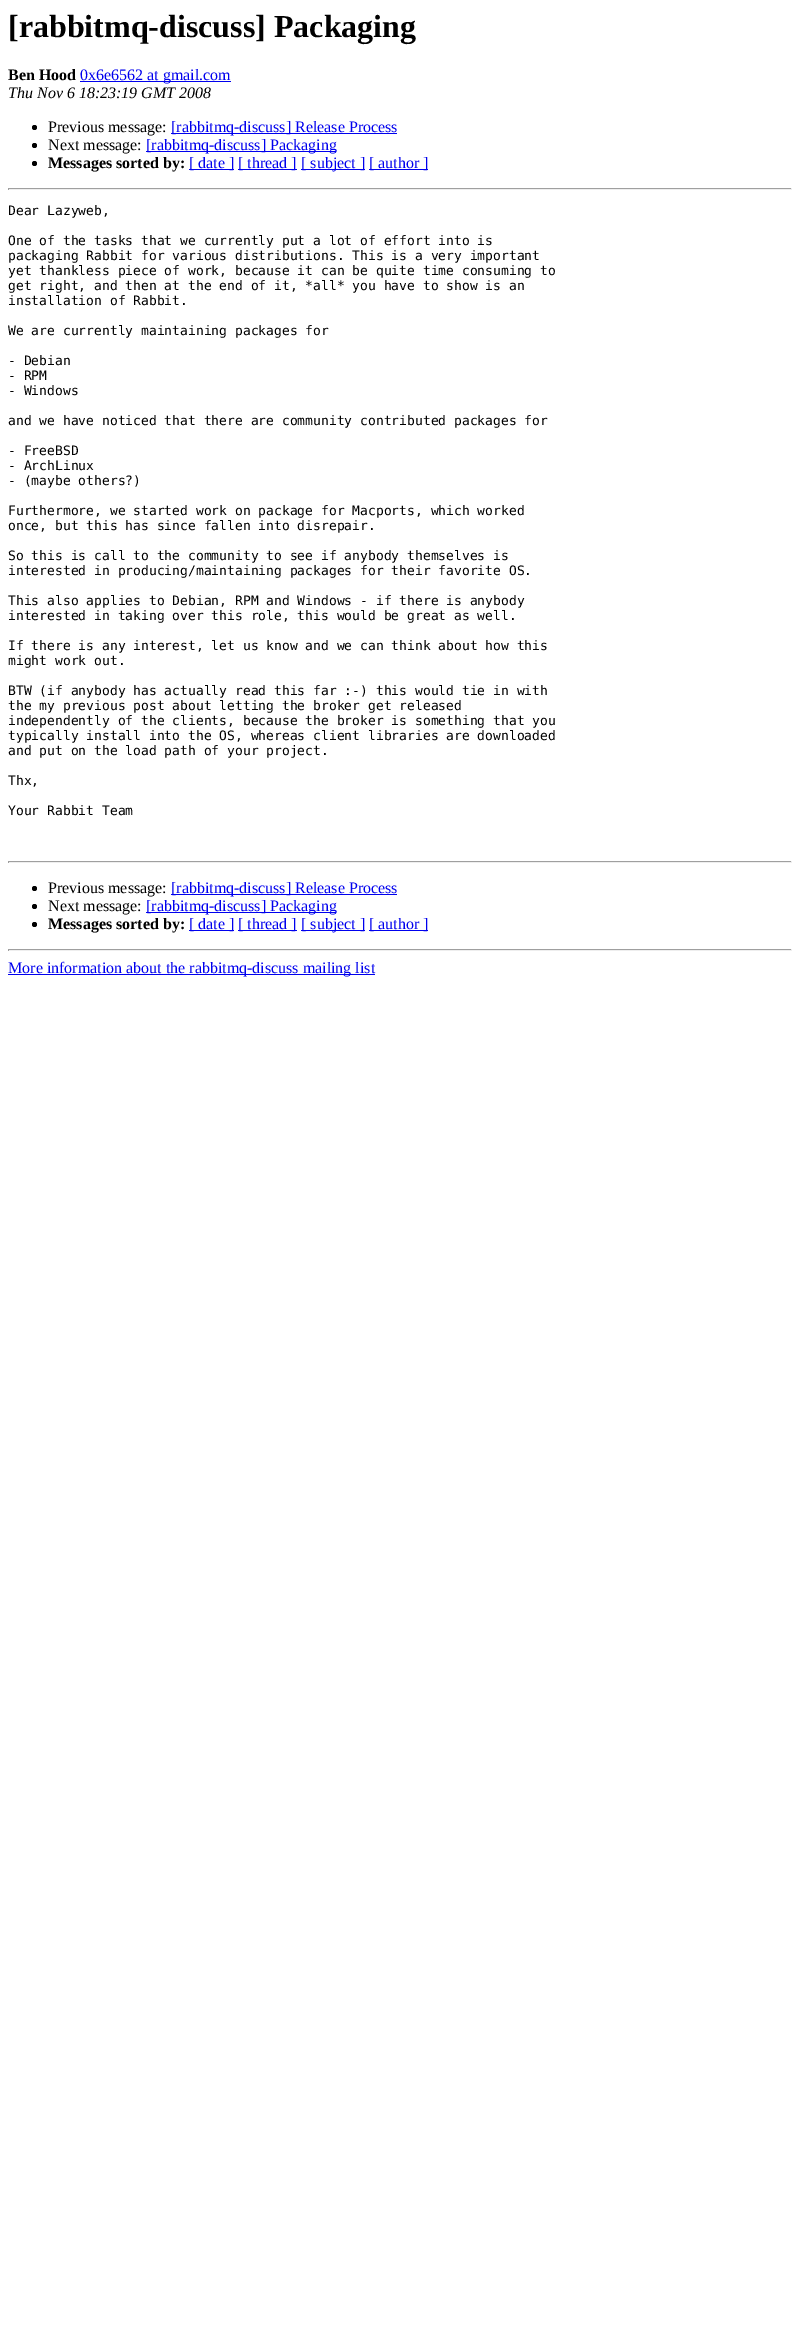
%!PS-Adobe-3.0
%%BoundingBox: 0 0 800 2333
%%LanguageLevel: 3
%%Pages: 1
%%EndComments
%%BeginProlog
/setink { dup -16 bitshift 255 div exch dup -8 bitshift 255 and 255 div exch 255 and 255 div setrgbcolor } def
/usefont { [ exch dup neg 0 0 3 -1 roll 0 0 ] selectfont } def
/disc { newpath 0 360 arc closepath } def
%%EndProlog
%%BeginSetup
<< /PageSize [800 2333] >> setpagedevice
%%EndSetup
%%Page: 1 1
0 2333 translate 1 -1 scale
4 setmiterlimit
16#FFFFFF setink
0 0 800 2333 rectfill
/LiberationSerif-Bold 32 usefont
16#000000 setink
8 37 moveto ([rabbitmq-discuss] Packaging) show
/LiberationSerif-Bold 16 usefont
8 80 moveto (Ben Hood) show
16#0000EE setink
80 81 151 1 rectfill
/LiberationSerif-Regular 16 usefont
80 80 moveto (0x6e6562 at gmail.com) show
/LiberationSerif-Italic 16 usefont
16#000000 setink
8 98 moveto (Thu Nov 6 18:23:19 GMT 2008) show
34.5 127.5 2.5 disc fill
/LiberationSerif-Regular 16 usefont
48 132 moveto (Previous message:) show
16#0000EE setink
171 133 226 1 rectfill
171 132 moveto ([rabbitmq-discuss] Release Process) show
16#000000 setink
34.5 145.5 2.5 disc fill
48 150 moveto (Next message:) show
16#0000EE setink
146 151 190 1 rectfill
146 150 moveto ([rabbitmq-discuss] Packaging) show
16#000000 setink
34.5 163.5 2.5 disc fill
/LiberationSerif-Bold 16 usefont
48 168 moveto (Messages sorted by:) show
16#0000EE setink
189 169 45 1 rectfill
/LiberationSerif-Regular 16 usefont
189 168 moveto ([ date ]) show
238 169 59 1 rectfill
238 168 moveto ([ thread ]) show
301 169 64 1 rectfill
301 168 moveto ([ subject ]) show
369 169 59 1 rectfill
369 168 moveto ([ author ]) show
[
    [8 188 784 1 16#9F9F9F]
    [791 188 1 2 16#EEEEEE]
    [8 189 784 1 16#EEEEEE]
    [8 188 1 2 16#9F9F9F]
] { aload pop setink rectfill } forall
/DejaVuSansMono-Regular 13 usefont
16#000000 setink
[
    [(Dear Lazyweb,) 8 215]
    [(One of the tasks that we currently put a lot of effort into is) 8 245]
    [(packaging Rabbit for various distributions. This is a very important) 8 260]
    [(yet thankless piece of work, because it can be quite time consuming to) 8 275]
    [(get right, and then at the end of it, *all* you have to show is an) 8 290]
    [(installation of Rabbit.) 8 305]
    [(We are currently maintaining packages for) 8 335]
    [(- Debian) 8 365]
    [(- RPM) 8 380]
    [(- Windows) 8 395]
    [(and we have noticed that there are community contributed packages for) 8 425]
    [(- FreeBSD) 8 455]
    [(- ArchLinux) 8 470]
    [(- \(maybe others?\)) 8 485]
    [(Furthermore, we started work on package for Macports, which worked) 8 515]
    [(once, but this has since fallen into disrepair.) 8 530]
    [(So this is call to the community to see if anybody themselves is) 8 560]
    [(interested in producing/maintaining packages for their favorite OS.) 8 575]
    [(This also applies to Debian, RPM and Windows - if there is anybody) 8 605]
    [(interested in taking over this role, this would be great as well.) 8 620]
    [(If there is any interest, let us know and we can think about how this) 8 650]
    [(might work out.) 8 665]
    [(BTW \(if anybody has actually read this far :-\) this would tie in with) 8 695]
    [(the my previous post about letting the broker get released) 8 710]
    [(independently of the clients, because the broker is something that you) 8 725]
    [(typically install into the OS, whereas client libraries are downloaded) 8 740]
    [(and put on the load path of your project.) 8 755]
    [(Thx,) 8 785]
    [(Your Rabbit Team) 8 815]
] { aload pop moveto show } forall
[
    [8 861 784 1 16#9F9F9F]
    [791 861 1 2 16#EEEEEE]
    [8 862 784 1 16#EEEEEE]
    [8 861 1 2 16#9F9F9F]
] { aload pop setink rectfill } forall
16#000000 setink
34.5 888.5 2.5 disc fill
/LiberationSerif-Regular 16 usefont
48 893 moveto (Previous message:) show
16#0000EE setink
171 894 226 1 rectfill
171 893 moveto ([rabbitmq-discuss] Release Process) show
16#000000 setink
34.5 906.5 2.5 disc fill
48 911 moveto (Next message:) show
16#0000EE setink
146 912 190 1 rectfill
146 911 moveto ([rabbitmq-discuss] Packaging) show
16#000000 setink
34.5 924.5 2.5 disc fill
/LiberationSerif-Bold 16 usefont
48 929 moveto (Messages sorted by:) show
16#0000EE setink
189 930 45 1 rectfill
/LiberationSerif-Regular 16 usefont
189 929 moveto ([ date ]) show
238 930 59 1 rectfill
238 929 moveto ([ thread ]) show
301 930 64 1 rectfill
301 929 moveto ([ subject ]) show
369 930 59 1 rectfill
369 929 moveto ([ author ]) show
[
    [8 949 784 1 16#9F9F9F]
    [791 949 1 2 16#EEEEEE]
    [8 950 784 1 16#EEEEEE]
    [8 949 1 2 16#9F9F9F]
    [8 974 367 1 16#0000EE]
] { aload pop setink rectfill } forall
8 973 moveto (More information about the rabbitmq-discuss mailing list) show
showpage
%%EOF
